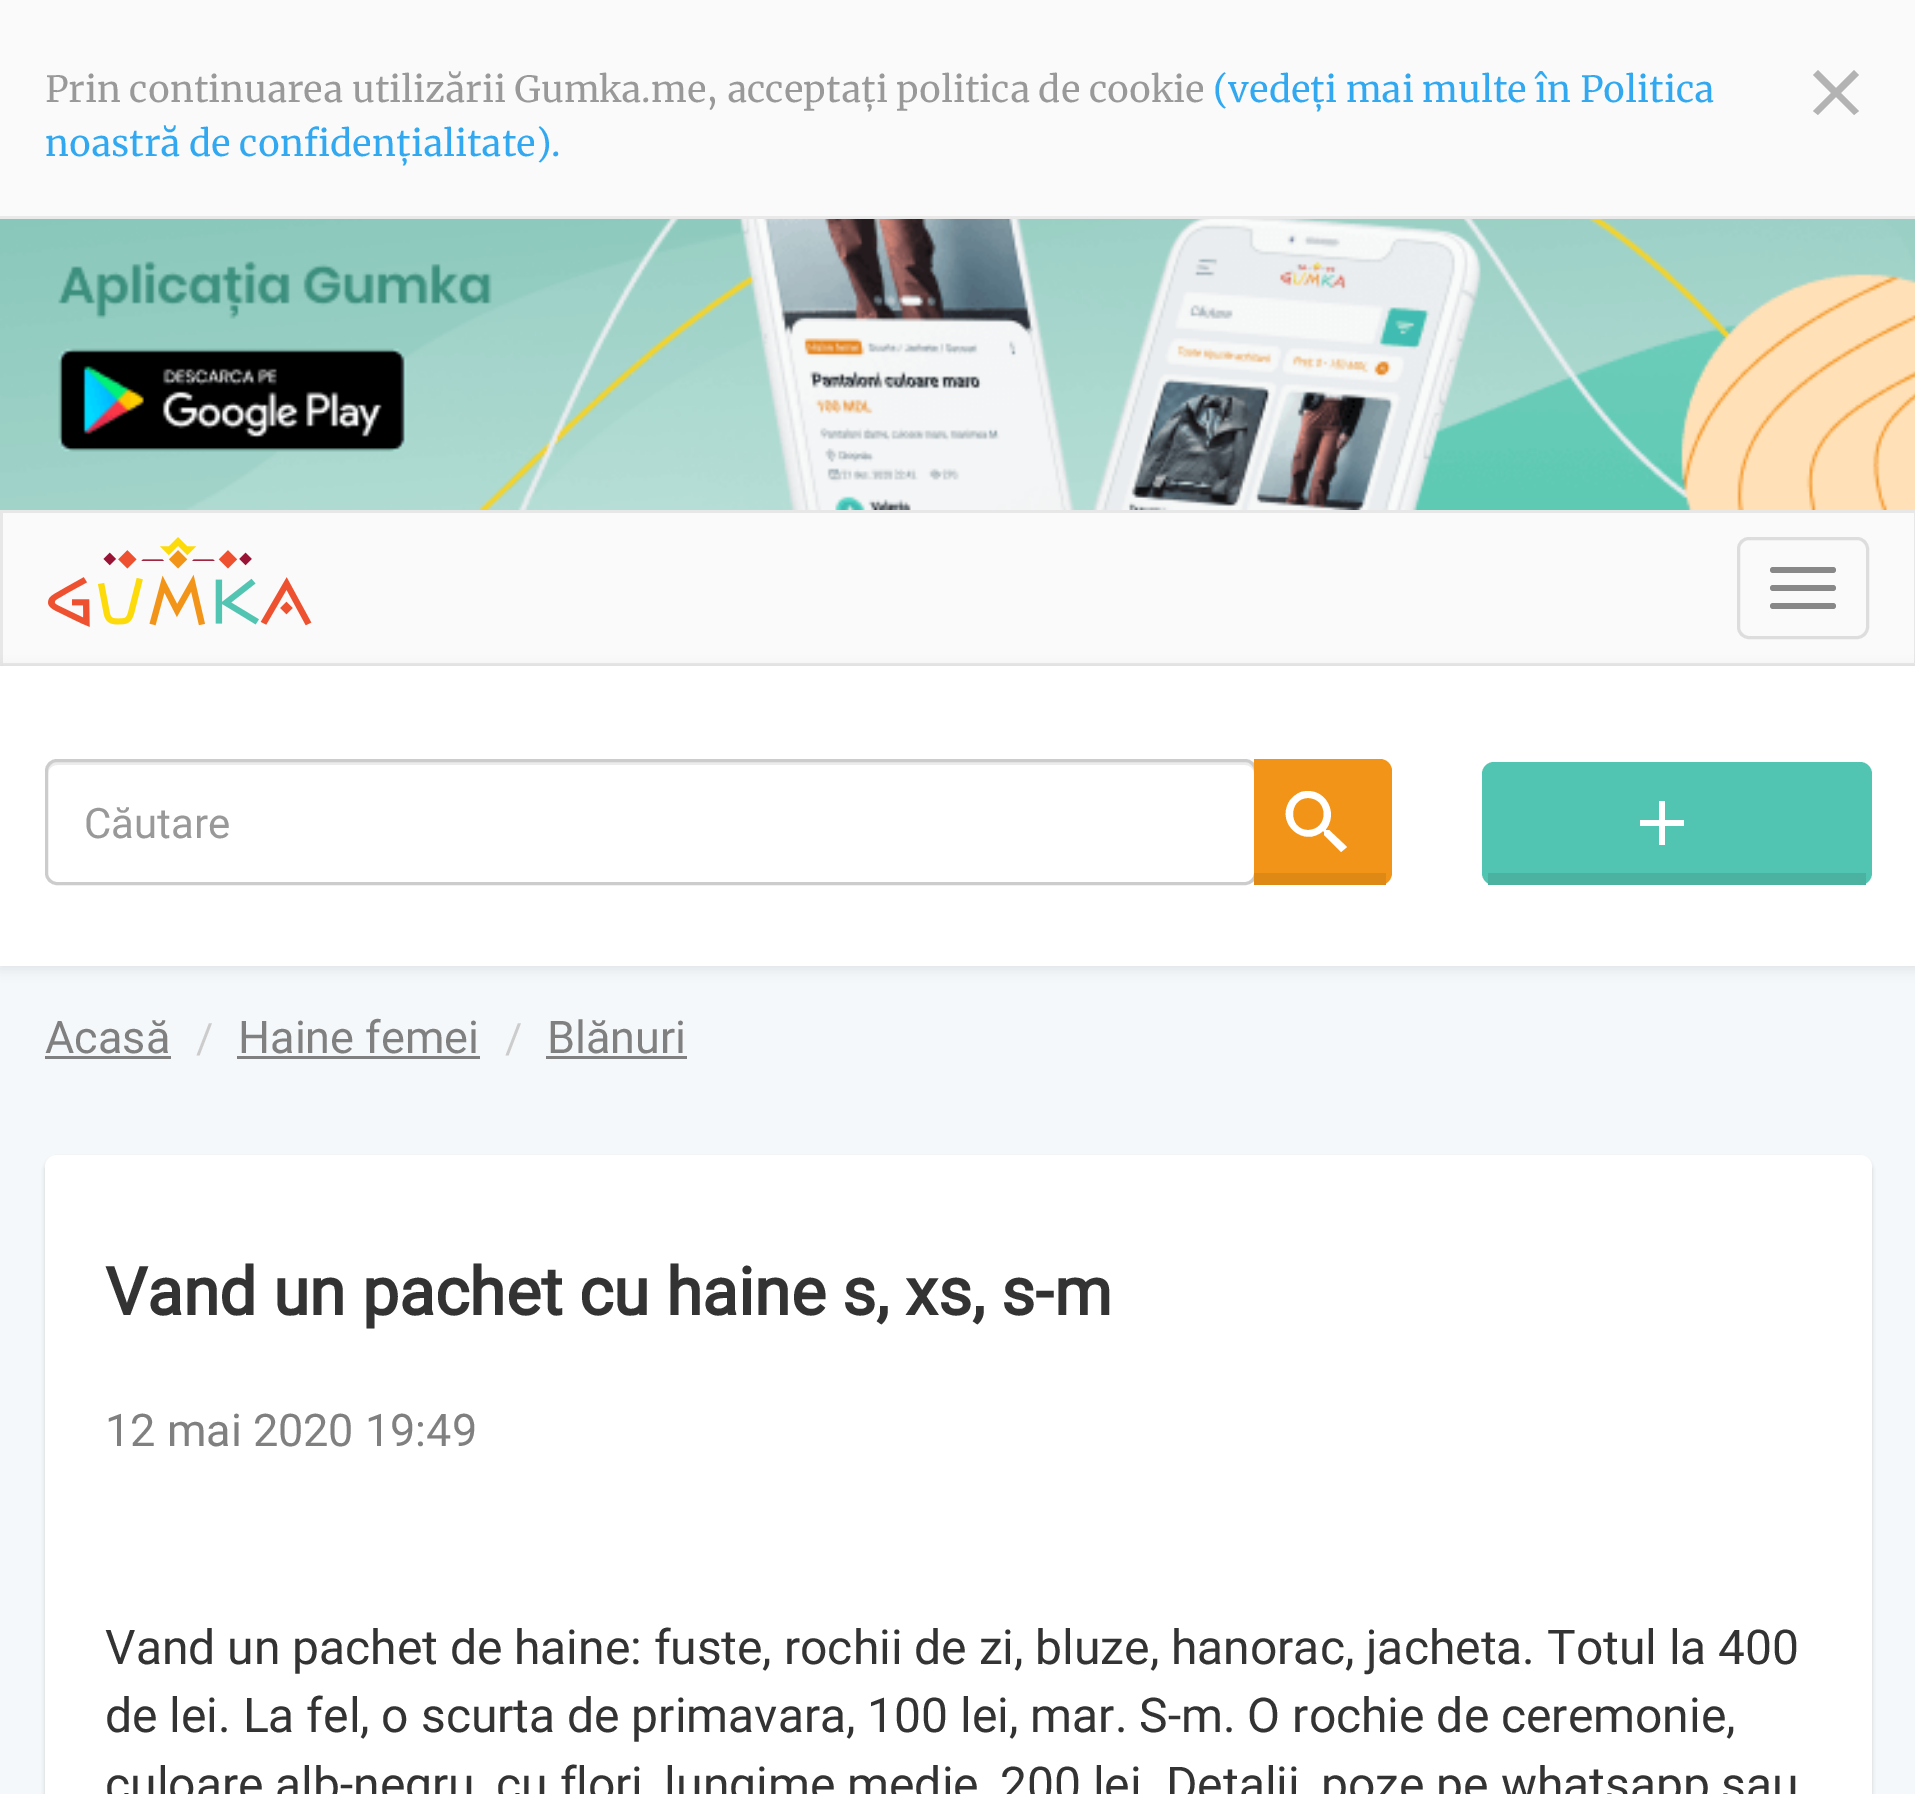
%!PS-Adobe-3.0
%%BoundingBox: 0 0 1915 1794
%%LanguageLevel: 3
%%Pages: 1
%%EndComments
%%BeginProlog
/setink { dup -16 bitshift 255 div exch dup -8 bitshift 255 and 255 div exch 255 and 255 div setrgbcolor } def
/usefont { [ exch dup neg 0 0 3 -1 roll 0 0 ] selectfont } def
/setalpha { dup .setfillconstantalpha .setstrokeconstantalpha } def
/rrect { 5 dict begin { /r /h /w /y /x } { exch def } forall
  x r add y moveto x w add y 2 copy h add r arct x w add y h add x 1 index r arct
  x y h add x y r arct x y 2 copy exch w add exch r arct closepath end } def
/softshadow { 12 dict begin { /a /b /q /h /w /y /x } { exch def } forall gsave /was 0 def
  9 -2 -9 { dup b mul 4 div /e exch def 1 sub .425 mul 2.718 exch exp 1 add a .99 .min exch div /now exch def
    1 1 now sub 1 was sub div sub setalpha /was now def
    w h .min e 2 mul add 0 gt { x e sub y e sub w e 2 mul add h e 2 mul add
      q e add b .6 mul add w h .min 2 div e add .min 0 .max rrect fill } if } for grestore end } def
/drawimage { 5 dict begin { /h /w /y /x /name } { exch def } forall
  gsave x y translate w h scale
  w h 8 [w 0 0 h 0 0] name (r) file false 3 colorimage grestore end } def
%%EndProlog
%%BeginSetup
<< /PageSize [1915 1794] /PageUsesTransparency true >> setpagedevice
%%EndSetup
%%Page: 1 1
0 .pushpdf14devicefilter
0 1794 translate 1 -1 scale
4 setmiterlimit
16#F5F8FA setink
0 0 1915 1794 rectfill
16#FAFAFA setink
0 0 1915 216 rectfill
16#E9E9E9 setink
0 216 1915 3 rectfill
/Merriweather-Regular 36 usefont
16#999999 setink
45 102 moveto (Prin continuarea utilizării Gumka.me, acceptați politica de cookie) show
16#31A8F0 setink
1213 102 moveto (\(vedeți mai multe în Politica) show
45 156 moveto (noastră de confidențialitate\).) show
16#B3B3B3 setink
1854 115 moveto 1859 111 lineto 1841 93 lineto 1859 75 lineto 1854 70 lineto 1836 88 lineto 1818 70 lineto 1813 75 lineto 1831 93 lineto 1813 111 lineto 1818 115 lineto 1836 97 lineto closepath fill
(img1.raw) 0 219 1915 291 drawimage
[
    [3 513 1911 150 16#FAFAFA]
    [0 510 1915 3 16#E7E7E7]
    [1914 510 1 156 16#E7E7E7]
    [0 663 1915 3 16#E9E9E9]
    [0 510 3 156 16#E7E7E7]
] { aload pop setink rectfill } forall
(img2.raw) 48 537 264 90 drawimage
16#DDDDDD setink
3 setlinewidth
1738.5 538.5 129 99 10.5 rrect stroke
16#888888 setink
1770 567 66 6 3 rrect fill
1770 585 66 6 3 rrect fill
1770 603 66 6 3 rrect fill
16#000000 setink
0 669 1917 300 0 6 0.08 softshadow
16#FFFFFF setink
0 666 1915 300 rectfill
16#ECECEC setink
57 765 moveto 1245 765 lineto 1250 765 1254 769 1254 774 curveto 1254 771 lineto 1254 766 1250 762 1245 762 curveto 57 762 lineto 52 762 48 766 48 771 curveto 48 774 lineto 48 769 52 765 57 765 curveto closepath fill
16#CCCCCC setink
46.5 760.5 1209 123 10.5 rrect stroke
/Roboto-Regular 42 usefont
16#999999 setink
84 838 moveto (Căutare) show
16#F29418 setink
1254 759 moveto 1380 759 lineto 1386.5 759 1392 764.5 1392 771 curveto 1392 873 lineto 1392 879.5 1386.5 885 1380 885 curveto 1254 885 lineto closepath fill
16#DE8816 setink
1254 873 132 12 rectfill
16#FFFFFF setink
1341 852 moveto 1347 847 lineto 1329 830 lineto 1326 830 lineto 1326 829 lineto 1334 819 1332 804 1322 796 curveto 1316 791 1308 790 1301 792 curveto 1296 794 1291 798 1289 802 curveto 1276 824 1304 848 1323 831 curveto 1324 832 lineto 1324 835 lineto closepath 1308 830 moveto 1288 830 1288 798 1308 798 curveto 1329 798 1329 830 1308 830 curveto closepath fill
16#52C4B2 setink
1482 762 390 123 12 rrect fill
16#4BB2A2 setink
1488 873 378 12 rectfill
16#FFFFFF setink
1665 845 moveto 1665 826 lineto 1684 826 lineto 1684 820 lineto 1665 820 lineto 1665 801 lineto 1659 801 lineto 1659 820 lineto 1640 820 lineto 1640 826 lineto 1659 826 lineto 1659 845 lineto closepath fill
/Roboto-Regular 45 usefont
16#808080 setink
45 1053 moveto (Acasă) show
45 1056 126 3 rectfill
/Roboto-Regular 42 usefont
16#CCCCCC setink
196 1053 moveto (/) show
/Roboto-Regular 45 usefont
16#808080 setink
238 1053 moveto (Haine femei) show
237 1056 243 3 rectfill
/Roboto-Regular 42 usefont
16#CCCCCC setink
505 1053 moveto (/) show
/Roboto-Regular 45 usefont
16#808080 setink
547 1053 moveto (Blănuri) show
546 1056 141 3 rectfill
16#000000 setink
48 1161 1821 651 9 3 0.5 softshadow
16#FFFFFF setink
45 1155 1827 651 12 rrect fill
/Roboto-Bold 66 usefont
16#333333 setink
105 1315 moveto (Vand un pachet cu haine s, xs, s-m) show
/Roboto-Regular 45 usefont
16#808080 setink
105 1446 moveto (12 mai 2020 19:49) show
/Roboto-Regular 48 usefont
16#333333 setink
[
    [(Vand un pachet de haine: fuste, rochii de zi, bluze, hanorac, jacheta. Totul la 400) 105 1664]
    [(de lei. La fel, o scurta de primavara, 100 lei, mar. S-m. O rochie de ceremonie,) 105 1732]
    [(culoare alb-negru, cu flori, lungime medie, 200 lei) 105 1801]
    [(Detalii, poze pe whatsapp sau) 1166 1801]
] { aload pop moveto show } forall
.poppdf14devicefilter showpage
%%EOF
